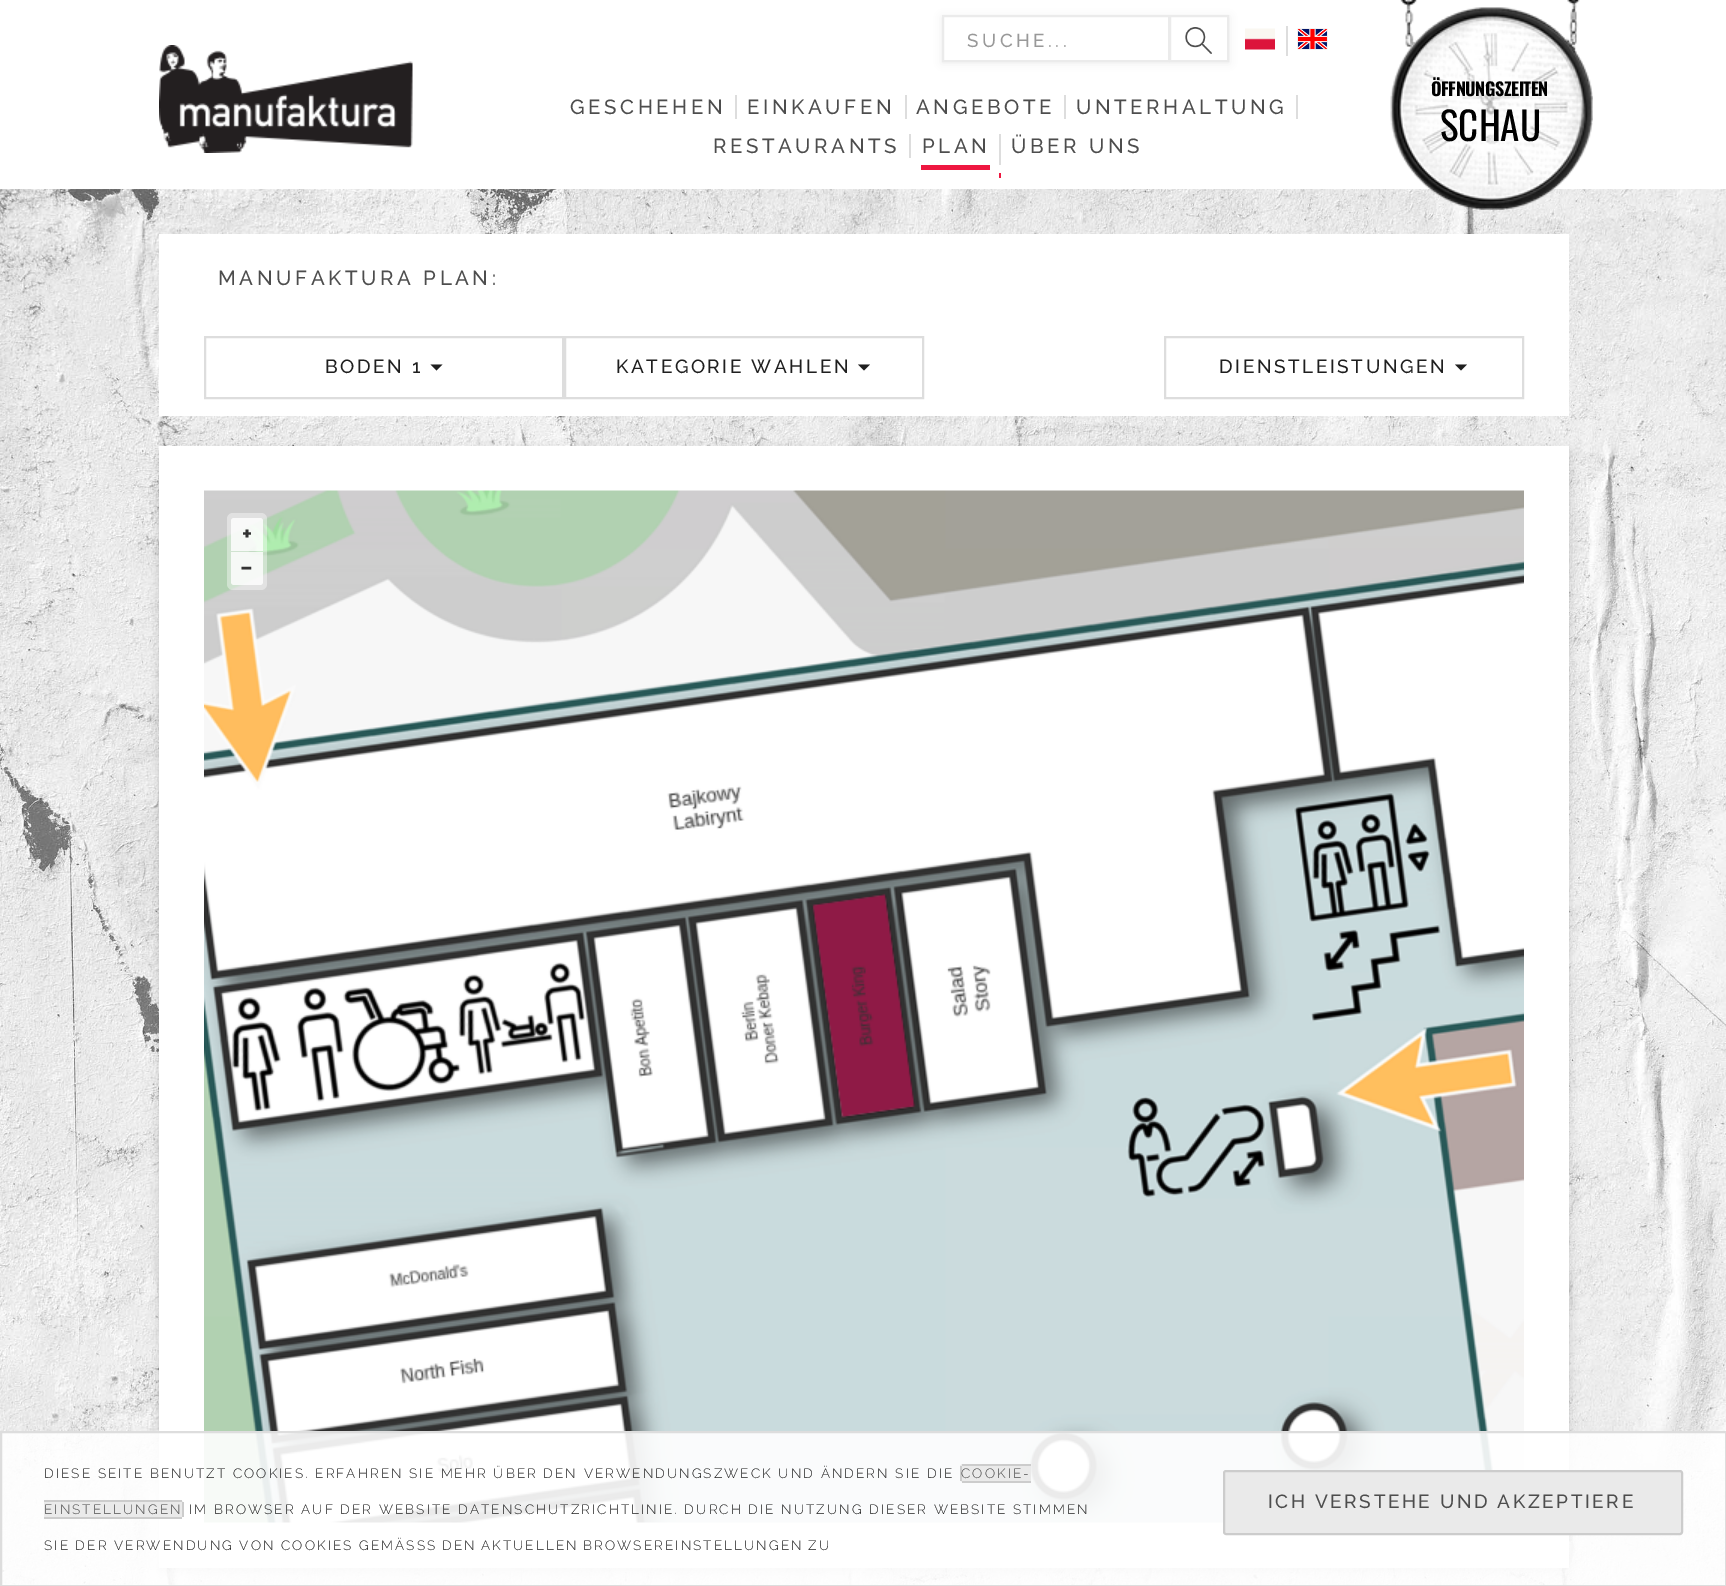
%!PS-Adobe-3.0
%%BoundingBox: 0 0 1726 1586
%%LanguageLevel: 3
%%Pages: 1
%%EndComments
%%BeginProlog
/setink { dup -16 bitshift 255 div exch dup -8 bitshift 255 and 255 div exch 255 and 255 div setrgbcolor } def
/usefont { [ exch dup neg 0 0 3 -1 roll 0 0 ] selectfont } def
/setalpha { dup .setfillconstantalpha .setstrokeconstantalpha } def
/rrect { 5 dict begin { /r /h /w /y /x } { exch def } forall
  x r add y moveto x w add y 2 copy h add r arct x w add y h add x 1 index r arct
  x y h add x y r arct x y 2 copy exch w add exch r arct closepath end } def
/softshadow { 12 dict begin { /a /b /q /h /w /y /x } { exch def } forall gsave /was 0 def
  9 -2 -9 { dup b mul 4 div /e exch def 1 sub .425 mul 2.718 exch exp 1 add a .99 .min exch div /now exch def
    1 1 now sub 1 was sub div sub setalpha /was now def
    w h .min e 2 mul add 0 gt { x e sub y e sub w e 2 mul add h e 2 mul add
      q e add b .6 mul add w h .min 2 div e add .min 0 .max rrect fill } if } for grestore end } def
/drawimage { 5 dict begin { /h /w /y /x /name } { exch def } forall
  gsave x y translate w h scale
  w h 8 [w 0 0 h 0 0] name (r) file false 3 colorimage grestore end } def
%%EndProlog
%%BeginSetup
<< /PageSize [1726 1586] /PageUsesTransparency true >> setpagedevice
%%EndSetup
%%Page: 1 1
0 .pushpdf14devicefilter
0 1586 translate 1 -1 scale
4 setmiterlimit
16#FFFFFF setink
0 0 1726 1586 rectfill
(img1.raw) 159 45 254 108 drawimage
16#000000 setink
942 17 287 46 0 4 0.07 softshadow
16#FFFFFF setink
943 16 moveto 1169 16 lineto 1169 61 lineto 943 61 lineto closepath gsave fill grestore
16#EBEBEB setink
2 setlinewidth
stroke
/Raleway-Medium 18.75 usefont
16#999999 setink
967 47 moveto 3.5 0 (SUCHE...) ashow
16#FFFFFF setink
1170 16 moveto 1228 16 lineto 1228 61 lineto 1170 61 lineto closepath gsave fill grestore
16#EBEBEB setink
stroke
(img2.raw) 1185 27 27 27 drawimage
(img3.raw) 1245 28 30 22 drawimage
16#DDDDDD setink
1286 26 2 30 rectfill
(img4.raw) 1297 28 31 22 drawimage
(img6.raw) 0 189 1726 1396 drawimage
(img5.raw) 1390 0 203 210 drawimage
/Oswald-Bold 18 usefont
16#000000 setink
1431 96 moveto -0.5 0 (ÖFFNUNGSZEITEN) ashow
/Oswald-Regular 39 usefont
1440 141 moveto (SCHAU) show
/Raleway-Medium 20.4 usefont
16#4D4D4D setink
570 114 moveto 3.6 0 (GESCHEHEN) ashow
16#DDDDDD setink
735 95 2 24 rectfill
16#4D4D4D setink
747 114 moveto 3.6 0 (EINKAUFEN) ashow
16#DDDDDD setink
905 95 2 24 rectfill
16#4D4D4D setink
916 114 moveto 3.6 0 (ANGEBOTE) ashow
16#DDDDDD setink
1064 95 2 24 rectfill
16#4D4D4D setink
1076 114 moveto 3.6 0 (UNTERHALTUNG) ashow
16#DDDDDD setink
1296 95 2 24 rectfill
16#4D4D4D setink
713 153 moveto 3.6 0 (RESTAURANTS) ashow
[
    [909 134 2 24 16#DDDDDD]
    [921 165 69 5 16#EE1740]
    [999 173 2 5 16#EE1740]
] { aload pop setink rectfill } forall
16#4D4D4D setink
922 153 moveto 3.6 0 (PLAN) ashow
16#DDDDDD setink
999 134 2 31 rectfill
16#4D4D4D setink
1011 153 moveto 3.6 0 (ÜBER UNS) ashow
16#FFFFFF setink
159 234 1410 182 rectfill
16#4D4D4D setink
218 285 moveto 3.6 0 (MANUFAKTURA PLAN:) ashow
16#DDDDDD setink
205 337 358 61 rectstroke
/Raleway-Medium 19 usefont
16#1F1F1F setink
325 373 moveto 2.55 0 (BODEN 1) ashow
430.5 364.5 moveto 442.5 364.5 lineto 436.5 370.5 lineto closepath fill
16#DDDDDD setink
565 337 358 61 rectstroke
16#1F1F1F setink
616 373 moveto 2.55 0 (KATEGORIE WAHLEN) ashow
858 364.5 moveto 870 364.5 lineto 864 370.5 lineto closepath fill
16#DDDDDD setink
1165 337 358 61 rectstroke
16#1F1F1F setink
1219 373 moveto 2.55 0 (DIENSTLEISTUNGEN) ashow
1455 364.5 moveto 1467 364.5 lineto 1461 370.5 lineto closepath fill
16#000000 setink
159 450 1410 1122 0 5 0.16 softshadow
16#FFFFFF setink
159 446 1410 1122 rectfill
(img7.raw) 204 490 1320 1033 drawimage
0.4 setalpha
227 513 40 77 6 rrect fill
0.8 setalpha
234 518 moveto 260 518 lineto 261.5 518 263 519.5 263 521 curveto 263 551 lineto 231 551 lineto 231 521 lineto 231 519.5 232.5 518 234 518 curveto closepath fill
/Raleway-Bold 24 usefont
1 setalpha
16#333333 setink
242 542 moveto (+) show
0.8 setalpha
16#FFFFFF setink
231 552 moveto 263 552 lineto 263 582 lineto 263 583.5 261.5 585 260 585 curveto 234 585 lineto 232.5 585 231 583.5 231 582 curveto closepath fill
1 setalpha
16#333333 setink
240 576 moveto (−) show
0.9 setalpha
16#FFFFFF setink
1 1432 moveto 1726 1432 lineto 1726 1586 lineto 1 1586 lineto closepath fill
1 setalpha
16#DDDDDD setink
1 1432 moveto 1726 1432 lineto 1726 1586 lineto 1 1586 lineto closepath stroke
/Raleway-Light 13.5 usefont
16#1F1F1F setink
44 1478 moveto 2.1 0 (DIESE SEITE BENUTZT COOKIES. ERFAHREN SIE MEHR ÜBER DEN VERWENDUNGSZWECK UND ÄNDERN SIE DIE) ashow
16#EAEAEA setink
963 1464 moveto 1031 1464 lineto 1031 1482 lineto 963 1482 lineto 961.5 1482 960 1480.5 960 1479 curveto 960 1467 lineto 960 1465.5 961.5 1464 963 1464 curveto closepath fill
16#CCCCCC setink
960 1466 2 15 rectfill
16#4D4D4D setink
961 1478 moveto 2.1 0 (COOKIE-) ashow
16#CCCCCC setink
962 1464 69 2 rectfill
962 1481 69 2 rectfill
16#EAEAEA setink
44 1500 moveto 180 1500 lineto 181.5 1500 183 1501.5 183 1503 curveto 183 1515 lineto 183 1516.5 181.5 1518 180 1518 curveto 44 1518 lineto closepath fill
16#4D4D4D setink
44 1514 moveto 2.1 0 (EINSTELLUNGEN) ashow
[
    [44 1500 138 2 16#CCCCCC]
    [182 1502 2 15 16#CCCCCC]
    [44 1517 138 2 16#CCCCCC]
] { aload pop setink rectfill } forall
16#1F1F1F setink
189 1514 moveto 2.1 0 (IM BROWSER AUF DER WEBSITE DATENSCHUTZRICHTLINIE. DURCH DIE NUTZUNG DIESER WEBSITE STIMMEN) ashow
44 1550 moveto 2.1 0 (SIE DER VERWENDUNG VON COOKIES GEMÄSS) ashow
427 1550 moveto -1 0 32 2.1 0 (S DEN AKTUELLEN BROWSEREINSTELLUNGEN ZU) awidthshow
16#EAEAEA setink
1224 1471 458 63 2 rrect gsave fill grestore
16#CCCCCC setink
stroke
/Raleway-Medium 19 usefont
16#4D4D4D setink
1268 1508 moveto 2.55 0 (ICH VERSTEHE UND AKZEPTIERE) ashow
.poppdf14devicefilter showpage
%%EOF
